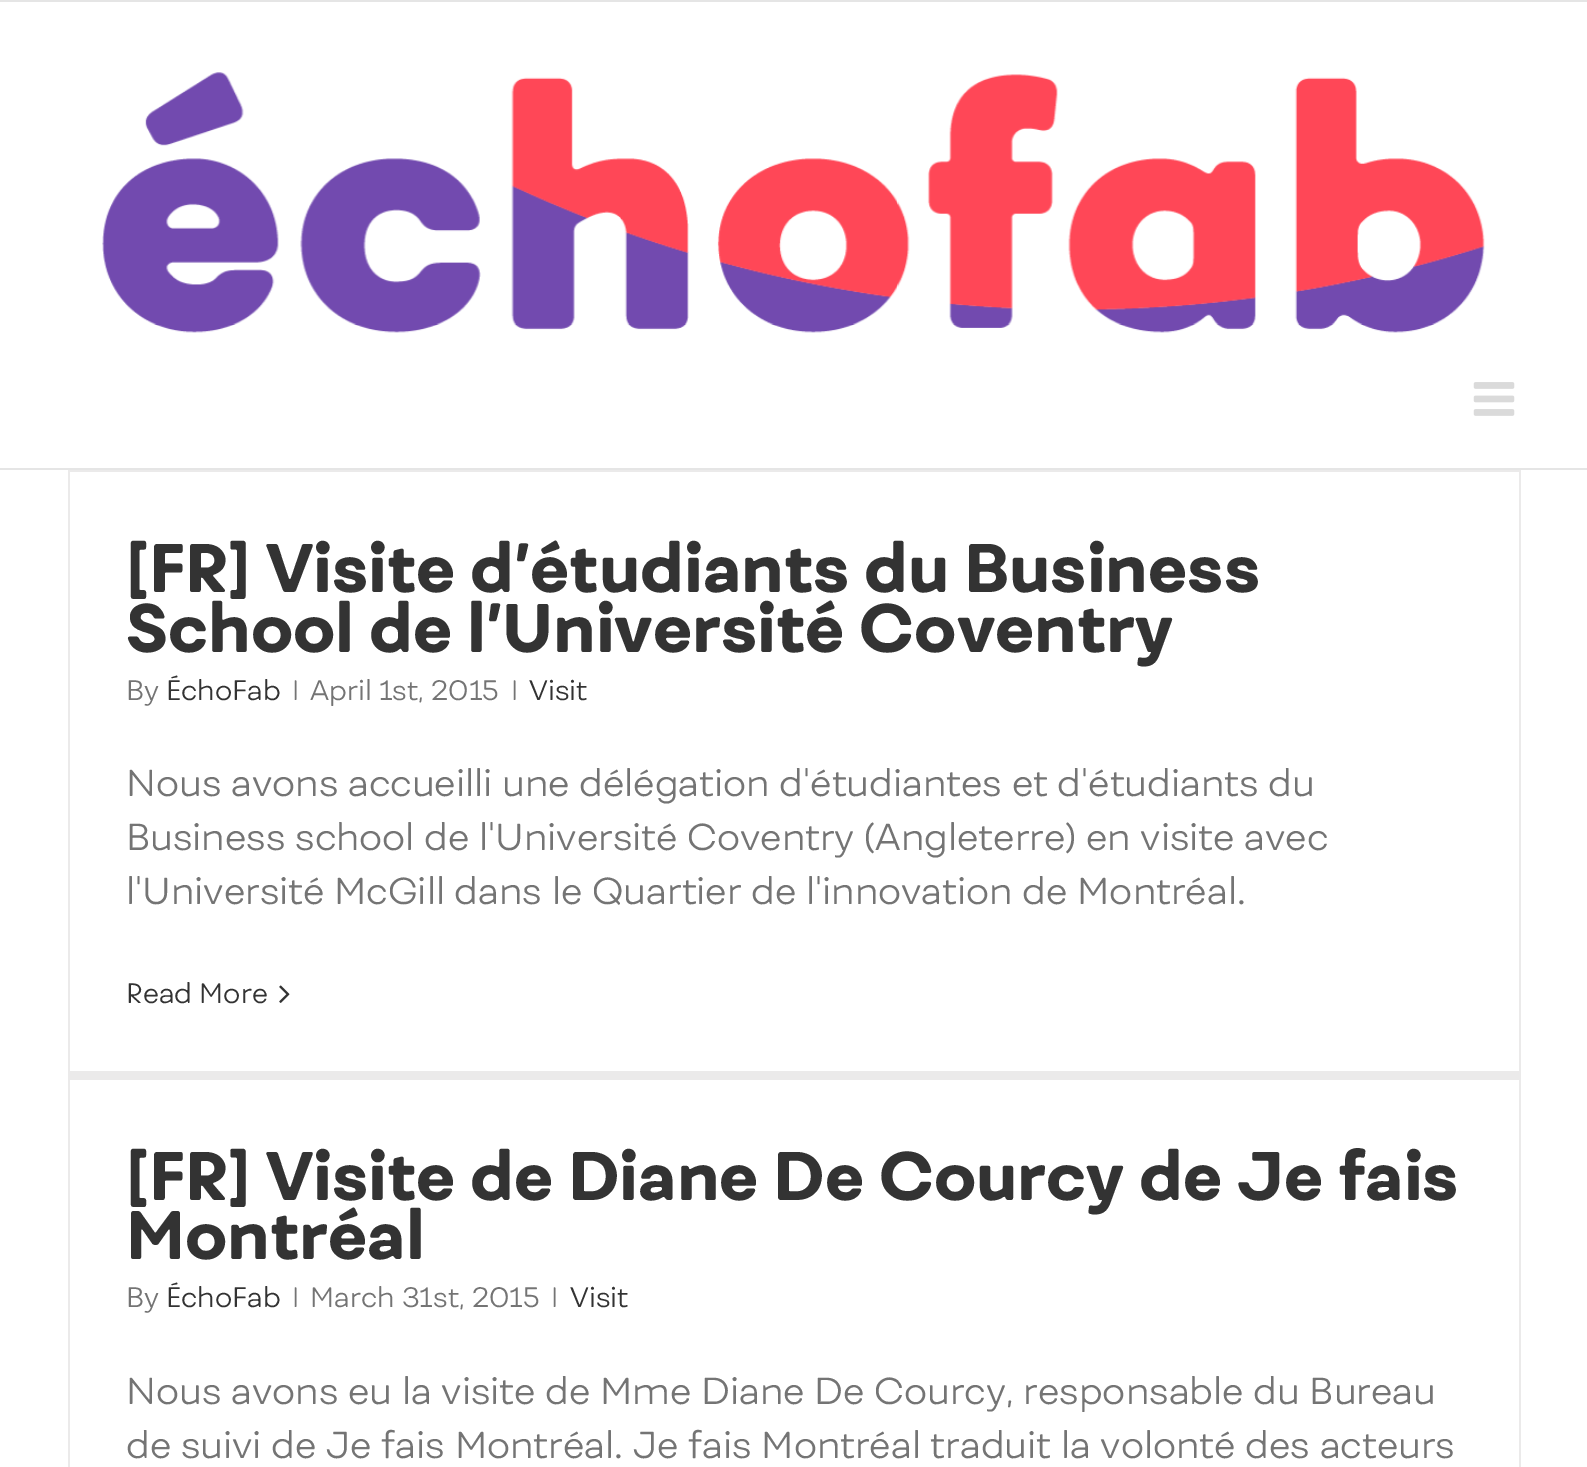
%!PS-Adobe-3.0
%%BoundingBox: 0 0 1587 1467
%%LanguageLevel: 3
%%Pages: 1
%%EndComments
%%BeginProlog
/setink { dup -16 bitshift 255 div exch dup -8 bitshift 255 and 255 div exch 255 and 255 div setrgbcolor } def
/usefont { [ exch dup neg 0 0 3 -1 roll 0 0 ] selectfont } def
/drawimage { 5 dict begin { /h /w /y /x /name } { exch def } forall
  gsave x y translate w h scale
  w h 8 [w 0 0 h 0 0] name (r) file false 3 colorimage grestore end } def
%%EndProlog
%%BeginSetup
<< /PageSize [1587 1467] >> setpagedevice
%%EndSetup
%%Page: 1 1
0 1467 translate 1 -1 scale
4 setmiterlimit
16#FFFFFF setink
0 0 1587 1467 rectfill
16#E5E5E5 setink
0 0 1587 2 rectfill
0 468 1587 2 rectfill
(img1.raw) 102 72 1383 261 drawimage
(img2.raw) 1473 382 42 34 drawimage
[
    [68 470 1453 2 16#EBEAEA]
    [1519 470 2 608 16#EBEAEA]
    [68 1071 1453 9 16#EBEAEA]
    [68 470 2 997 16#EBEAEA]
] { aload pop setink rectfill } forall
/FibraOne-ExtraBold 65.9 usefont
16#333333 setink
126 592 moveto ([FR] Visite d’étudiants du Business) show
126 652 moveto (School de l’Université Coventry) show
/FibraOne-Light 27 usefont
16#747474 setink
126 700 moveto (By) show
16#333333 setink
166 700 moveto (ÉchoFab) show
16#747474 setink
[
    [(|) 292 700]
    [(April 1st, 2015) 310 700]
    [(|) 511 700]
] { aload pop moveto show } forall
16#333333 setink
529 700 moveto (Visit) show
/FibraOne-Light 36 usefont
16#747474 setink
[
    [(Nous avons accueilli une délégation d'étudiantes et d'étudiants du) 126 796]
    [(Business school de l'Université Coventry \(Angleterre\) en visite avec) 126 850]
    [(l'Université McGill dans le Quartier de l'innovation de Montréal.) 126 904]
] { aload pop moveto show } forall
/FibraOne-Light 27 usefont
16#333333 setink
126 1003 moveto (Read More) show
(img3.raw) 279 985 11 18 drawimage
16#EBEAEA setink
1519 1078 2 389 rectfill
/FibraOne-ExtraBold 65.9 usefont
16#333333 setink
126 1200 moveto ([FR] Visite de Diane De Courcy de Je fais) show
126 1259 moveto (Montréal) show
/FibraOne-Light 27 usefont
16#747474 setink
126 1307 moveto (By) show
16#333333 setink
166 1307 moveto (ÉchoFab) show
16#747474 setink
[
    [(|) 292 1307]
    [(March 31st, 2015) 310 1307]
    [(|) 551 1307]
] { aload pop moveto show } forall
16#333333 setink
570 1307 moveto (Visit) show
/FibraOne-Light 36 usefont
16#747474 setink
126 1404 moveto (Nous avons eu la visite de Mme Diane De Courcy, responsable du Bureau) show
126 1458 moveto (de suivi de Je fais Montréal. Je fais Montréal traduit la volonté des acteurs) show
showpage
%%EOF
